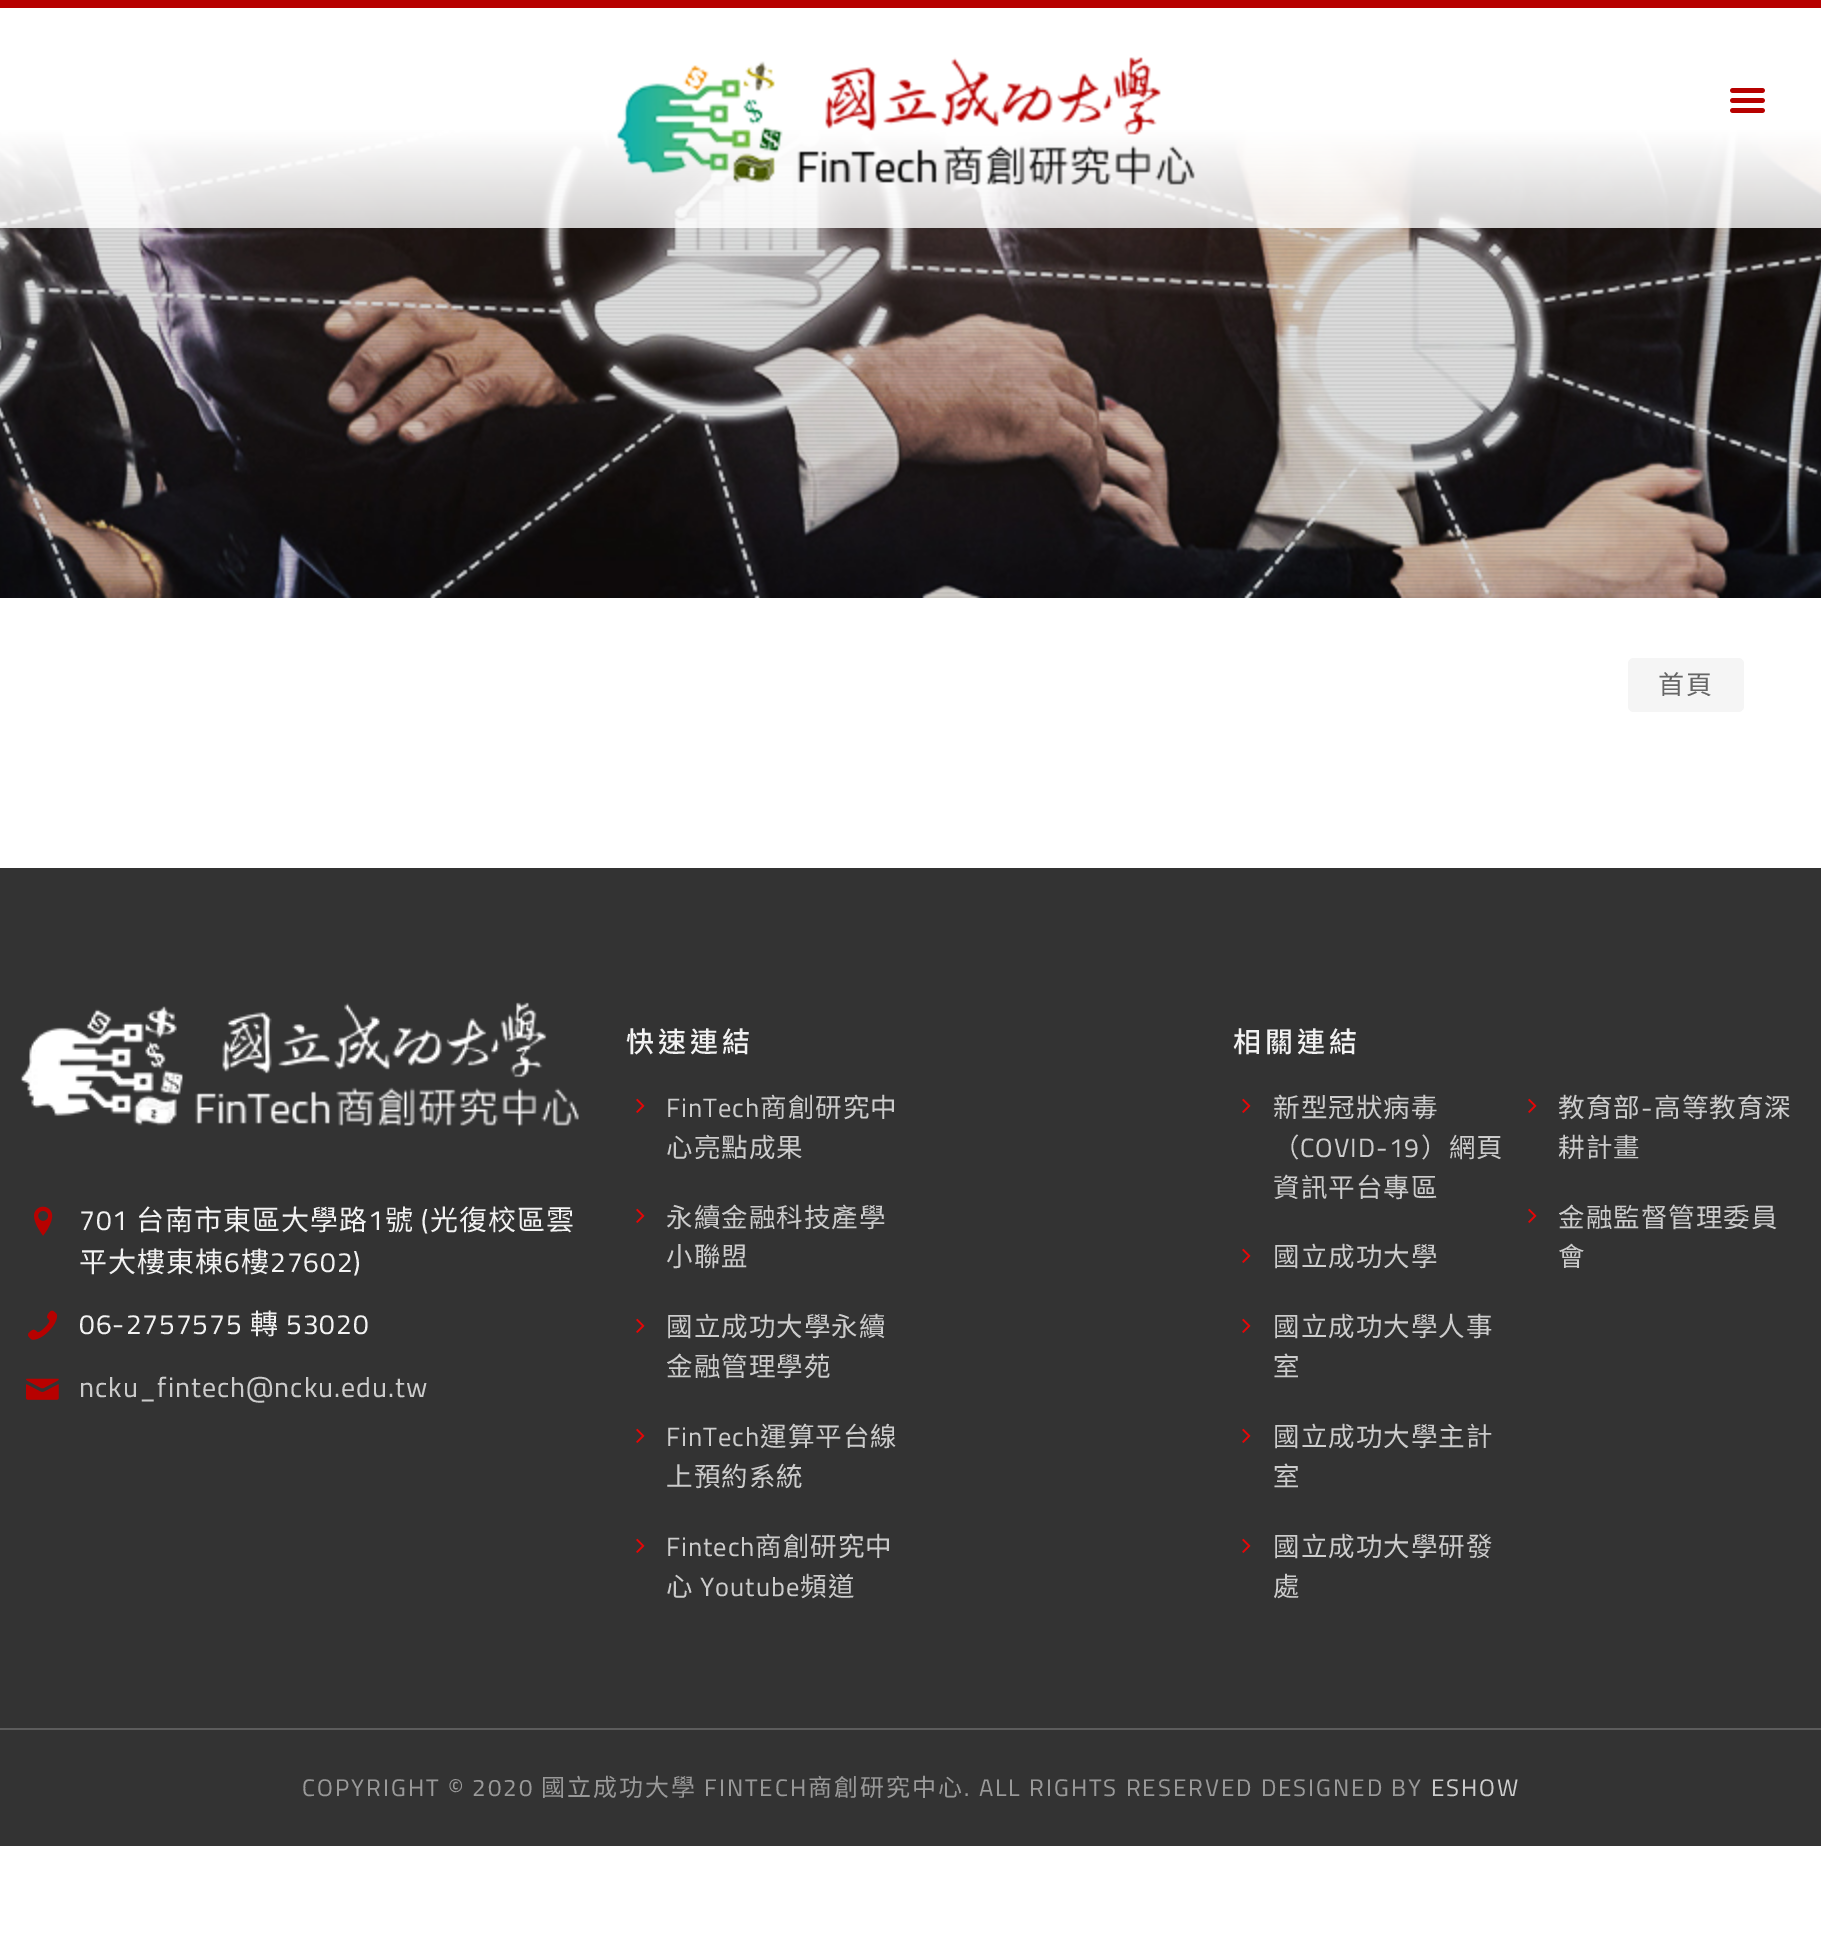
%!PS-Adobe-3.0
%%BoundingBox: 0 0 1821 1934
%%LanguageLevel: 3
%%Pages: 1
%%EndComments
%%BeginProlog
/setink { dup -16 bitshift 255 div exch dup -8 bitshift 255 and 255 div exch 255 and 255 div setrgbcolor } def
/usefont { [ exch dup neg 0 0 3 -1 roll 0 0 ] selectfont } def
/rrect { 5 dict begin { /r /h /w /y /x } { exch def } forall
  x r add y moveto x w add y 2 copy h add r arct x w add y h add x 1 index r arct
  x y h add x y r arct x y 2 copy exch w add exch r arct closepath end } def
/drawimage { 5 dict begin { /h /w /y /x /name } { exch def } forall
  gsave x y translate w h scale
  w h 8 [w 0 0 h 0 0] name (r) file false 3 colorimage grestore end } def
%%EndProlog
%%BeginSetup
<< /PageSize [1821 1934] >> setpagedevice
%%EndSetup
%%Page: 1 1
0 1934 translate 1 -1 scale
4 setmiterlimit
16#FFFFFF setink
0 0 1821 1934 rectfill
(img1.raw) 0 8 1821 590 drawimage
16#B70100 setink
0 0 1821 8 rectfill
(img2.raw) 615 57 580 129 drawimage
(img3.raw) 1730 88 35 25 drawimage
16#F5F5F5 setink
1628 658 116 54 6 rrect fill
/NotoSansTC-Regular 26 usefont
16#666666 setink
1658 694 moveto 2 0 (首頁) ashow
16#333333 setink
0 868 1821 978 rectfill
(img4.raw) 20 1002 559 125 drawimage
(img5.raw) 34 1206 19 30 drawimage
/Cairo-Regular 28 usefont
16#F2F2F2 setink
79 1230 moveto 1 0 (701) ashow
/NotoSansTC-Regular 28 usefont
136 1230 moveto 1 0 (台南市東區大學路) ashow
/Cairo-Regular 28 usefont
368 1230 moveto 1 0 (1) ashow
/NotoSansTC-Regular 28 usefont
385 1230 moveto 1 0 (號) ashow
/Cairo-Regular 28 usefont
421 1230 moveto 1 0 (\() ashow
/NotoSansTC-Regular 28 usefont
430 1230 moveto 1 0 (光復校區雲) ashow
79 1272 moveto 1 0 (平大樓東棟) ashow
/Cairo-Regular 28 usefont
224 1272 moveto 1 0 (6) ashow
/NotoSansTC-Regular 28 usefont
241 1272 moveto 1 0 (樓) ashow
/Cairo-Regular 28 usefont
270 1272 moveto 1 0 (27602\)) ashow
(img6.raw) 28 1310 30 30 drawimage
79 1334 moveto 1 0 (06-2757575) ashow
/NotoSansTC-Regular 28 usefont
250 1334 moveto 1 0 (轉) ashow
/Cairo-Regular 28 usefont
286 1334 moveto 1 0 (53020) ashow
(img7.raw) 26 1378 33 22 drawimage
16#CCCCCC setink
79 1397 moveto 1 0 (ncku_fintech@ncku.edu.tw) ashow
/NotoSansTC-Medium 28 usefont
16#F2F2F2 setink
626 1052 moveto 4 0 (快速連結) ashow
(img8.raw) 636 1098 9 15 drawimage
/Cairo-Regular 26.5 usefont
16#CCCCCC setink
666 1117 moveto 1 0 (FinTech) ashow
/NotoSansTC-Regular 26.5 usefont
760 1117 moveto 1 0 (商創研究中) ashow
666 1157 moveto 1 0 (心亮點成果) ashow
(img8.raw) 636 1208 9 15 drawimage
666 1227 moveto 1 0 (永續金融科技產學) ashow
666 1266 moveto 1 0 (小聯盟) ashow
(img8.raw) 636 1318 9 15 drawimage
666 1336 moveto 1 0 (國立成功大學永續) ashow
666 1376 moveto 1 0 (金融管理學苑) ashow
(img8.raw) 636 1428 9 15 drawimage
/Cairo-Regular 26.5 usefont
666 1446 moveto 1 0 (FinTech) ashow
/NotoSansTC-Regular 26.5 usefont
760 1446 moveto 1 0 (運算平台線) ashow
666 1486 moveto 1 0 (上預約系統) ashow
(img8.raw) 636 1538 9 15 drawimage
/Cairo-Regular 26.5 usefont
666 1556 moveto 1 0 (Fintech) ashow
/NotoSansTC-Regular 26.5 usefont
755 1556 moveto 1 0 (商創研究中) ashow
666 1596 moveto 1 0 (心) ashow
/Cairo-Regular 26.5 usefont
700 1596 moveto 1 0 (Youtube) ashow
/NotoSansTC-Regular 26.5 usefont
800 1596 moveto 1 0 (頻道) ashow
/NotoSansTC-Medium 28 usefont
16#F2F2F2 setink
1233 1052 moveto 4 0 (相關連結) ashow
(img8.raw) 1242 1098 9 15 drawimage
/NotoSansTC-Regular 26.5 usefont
16#CCCCCC setink
1273 1117 moveto 1 0 (新型冠狀病毒) ashow
1273 1157 moveto 1 0 (（) ashow
/Cairo-Regular 26.5 usefont
1300 1157 moveto 1 0 (COVID-19) ashow
/NotoSansTC-Regular 26.5 usefont
1421 1157 moveto 1 0 (）網頁) ashow
1273 1197 moveto 1 0 (資訊平台專區) ashow
(img8.raw) 1242 1248 9 15 drawimage
1273 1266 moveto 1 0 (國立成功大學) ashow
(img8.raw) 1242 1318 9 15 drawimage
1273 1336 moveto 1 0 (國立成功大學人事) ashow
1273 1376 moveto 1 0 (室) ashow
(img8.raw) 1242 1428 9 15 drawimage
1273 1446 moveto 1 0 (國立成功大學主計) ashow
1273 1486 moveto 1 0 (室) ashow
(img8.raw) 1242 1538 9 15 drawimage
1273 1556 moveto 1 0 (國立成功大學研發) ashow
1273 1596 moveto 1 0 (處) ashow
(img8.raw) 1528 1098 9 15 drawimage
1558 1117 moveto 1 0 (教育部) ashow
/Cairo-Regular 26.5 usefont
1641 1117 moveto 1 0 (-) ashow
/NotoSansTC-Regular 26.5 usefont
1654 1117 moveto 1 0 (高等教育深) ashow
1558 1157 moveto 1 0 (耕計畫) ashow
(img8.raw) 1528 1208 9 15 drawimage
1558 1227 moveto 1 0 (金融監督管理委員) ashow
1558 1266 moveto 1 0 (會) ashow
16#5C5C5C setink
0 1728 1821 2 rectfill
/Cairo-Regular 24 usefont
16#999999 setink
302 1796 moveto 2 0 (COPYRIGHT © 2020) ashow
/NotoSansTC-Regular 24 usefont
541 1796 moveto 2 0 (國立成功大學) ashow
/Cairo-Regular 24 usefont
704 1796 moveto 2 0 (FINTECH) ashow
/NotoSansTC-Regular 24 usefont
808 1796 moveto 2 0 (商創研究中心) ashow
/Cairo-Regular 24 usefont
964 1796 moveto 2 0 (. ALL RIGHTS RESERVED DESIGNED BY) ashow
16#CCCCCC setink
1431 1796 moveto 2 0 (ESHOW) ashow
showpage
%%EOF
